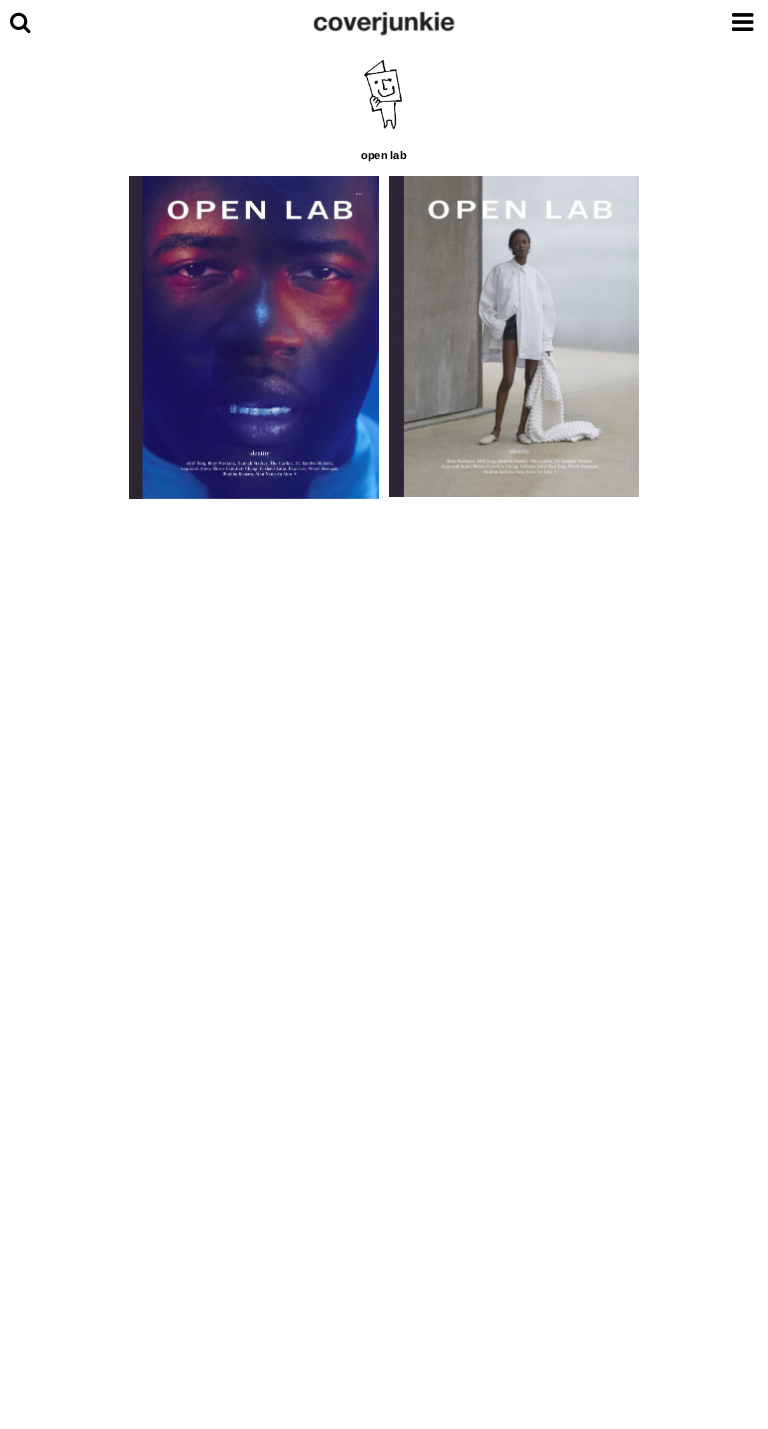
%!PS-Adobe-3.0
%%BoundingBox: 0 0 768 1429
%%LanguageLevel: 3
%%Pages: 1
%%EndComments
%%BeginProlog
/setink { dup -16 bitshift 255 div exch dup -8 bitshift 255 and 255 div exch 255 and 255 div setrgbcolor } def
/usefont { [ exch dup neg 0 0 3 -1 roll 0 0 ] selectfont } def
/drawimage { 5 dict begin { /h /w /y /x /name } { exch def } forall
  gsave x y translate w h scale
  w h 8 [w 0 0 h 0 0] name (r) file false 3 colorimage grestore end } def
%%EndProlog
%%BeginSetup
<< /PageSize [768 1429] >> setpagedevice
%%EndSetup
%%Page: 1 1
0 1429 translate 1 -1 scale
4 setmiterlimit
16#FFFFFF setink
0 0 768 1429 rectfill
(img1.raw) 10 12 21 22 drawimage
(img2.raw) 313 11 142 25 drawimage
(img3.raw) 732 13 22 18 drawimage
(img4.raw) 364 60 38 69 drawimage
/LiberationSans-Bold 11 usefont
16#000000 setink
361 159 moveto (open lab) show
(img5.raw) 129 176 250 323 drawimage
(img6.raw) 389 176 250 321 drawimage
showpage
%%EOF
